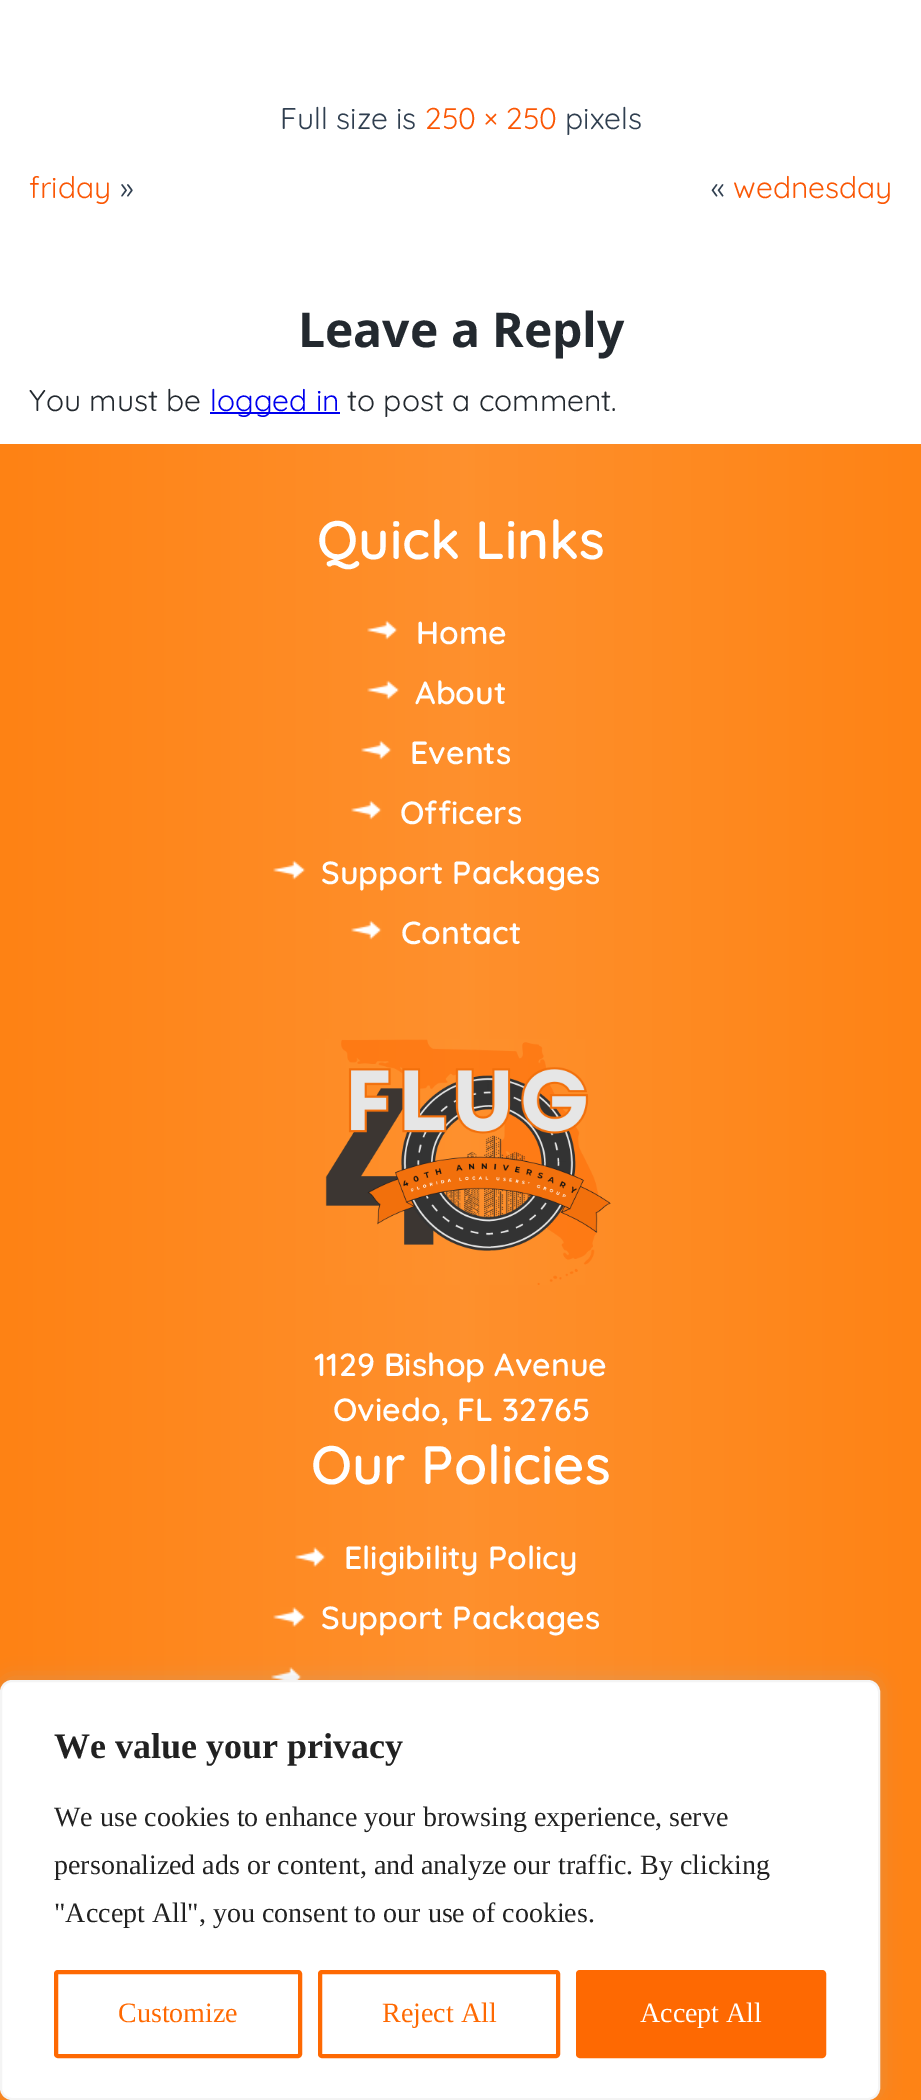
%!PS-Adobe-3.0
%%BoundingBox: 0 0 921 2100
%%LanguageLevel: 3
%%Pages: 1
%%EndComments
%%BeginProlog
/setink { dup -16 bitshift 255 div exch dup -8 bitshift 255 and 255 div exch 255 and 255 div setrgbcolor } def
/usefont { [ exch dup neg 0 0 3 -1 roll 0 0 ] selectfont } def
/setalpha { dup .setfillconstantalpha .setstrokeconstantalpha } def
/rrect { 5 dict begin { /r /h /w /y /x } { exch def } forall
  x r add y moveto x w add y 2 copy h add r arct x w add y h add x 1 index r arct
  x y h add x y r arct x y 2 copy exch w add exch r arct closepath end } def
/softshadow { 12 dict begin { /a /b /q /h /w /y /x } { exch def } forall gsave /was 0 def
  9 -2 -9 { dup b mul 4 div /e exch def 1 sub .425 mul 2.718 exch exp 1 add a .99 .min exch div /now exch def
    1 1 now sub 1 was sub div sub setalpha /was now def
    w h .min e 2 mul add 0 gt { x e sub y e sub w e 2 mul add h e 2 mul add
      q e add b .6 mul add w h .min 2 div e add .min 0 .max rrect fill } if } for grestore end } def
/drawimage { 5 dict begin { /h /w /y /x /name } { exch def } forall
  gsave x y translate w h scale
  w h 8 [w 0 0 h 0 0] name (r) file false 3 colorimage grestore end } def
%%EndProlog
%%BeginSetup
<< /PageSize [921 2100] /PageUsesTransparency true >> setpagedevice
%%EndSetup
%%Page: 1 1
0 .pushpdf14devicefilter
0 2100 translate 1 -1 scale
4 setmiterlimit
16#FFFFFF setink
0 0 921 2100 rectfill
/Quicksand-Light 30 usefont
16#303F50 setink
280 129 moveto (Full size is) show
16#FA5705 setink
425 129 moveto (250 × 250) show
16#303F50 setink
565 129 moveto (pixels) show
16#FA5705 setink
29 198 moveto (friday) show
16#303F50 setink
120 198 moveto (») show
711 198 moveto («) show
16#FA5705 setink
733 198 moveto (wednesday) show
/OpenSans-Bold 48 usefont
16#23292F setink
298 347 moveto (Leave a Reply) show
/Quicksand-Light 30 usefont
29 411 moveto (You must be) show
16#0000EE setink
210 412 130 2 rectfill
210 411 moveto (logged in) show
16#23292F setink
347 411 moveto (to post a comment.) show
gsave 0 444 moveto 921 444 lineto 921 2100 lineto 0 2100 lineto closepath clip newpath
<< /ShadingType 2 /ColorSpace /DeviceRGB /Coords [0 1272 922 1272] /Extend [true true] /Function << /FunctionType 3 /Domain [0 1] /Functions [<< /FunctionType 2 /Domain [0 1] /C0 [0.996 0.51 0.078] /C1 [0.996 0.565 0.176] /N 1 >> << /FunctionType 2 /Domain [0 1] /C0 [0.996 0.565 0.176] /C1 [0.996 0.514 0.082] /N 1 >>] /Bounds [0.5] /Encode [0 1 0 1] >> >> shfill grestore
/Quicksand-SemiBold 54 usefont
16#FFFFFF setink
317 559 moveto (Quick Links) show
(img1.raw) 367 620 31 20 drawimage
/Quicksand-SemiBold 32 usefont
416 644 moveto (Home) show
(img2.raw) 367 680 33 20 drawimage
415 704 moveto (About) show
(img3.raw) 361 740 31 20 drawimage
410 764 moveto (Events) show
(img4.raw) 351 800 31 20 drawimage
400 824 moveto (Officers) show
(img5.raw) 273 860 33 20 drawimage
321 884 moveto (Support Packages) show
(img4.raw) 351 920 31 20 drawimage
401 944 moveto (Contact) show
(img6.raw) 325 1039 286 246 drawimage
314 1376 moveto (1129 Bishop Avenue) show
333 1421 moveto (Oviedo, FL 32765) show
/Quicksand-SemiBold 54 usefont
311 1484 moveto (Our Policies) show
(img7.raw) 295 1547 31 20 drawimage
/Quicksand-SemiBold 32 usefont
344 1569 moveto (Eligibility Policy) show
(img8.raw) 273 1607 33 20 drawimage
321 1629 moveto (Support Packages) show
(img9.raw) 271 1667 31 13 drawimage
16#ACABAB setink
0 1678 880 420 12 10 0.3 softshadow
16#FFFFFF setink
1 1681 878 418 11 rrect gsave fill grestore
16#F4F4F4 setink
2 setlinewidth
stroke
/LiberationSerif-Bold 36 usefont
16#212121 setink
54 1758 moveto (We value your privacy) show
/LiberationSerif-Regular 28 usefont
[
    [(We use cookies to enhance your browsing experience, serve) 54 1826]
    [(personalized ads or content, and analyze our traffic. By clicking) 54 1874]
    [("Accept All", you consent to our use of cookies.) 54 1922]
] { aload pop moveto show } forall
16#FE6902 setink
4 setlinewidth
56 1972 244 84 2 rrect stroke
118 2022 moveto (Customize) show
320 1972 238 84 2 rrect stroke
382 2022 moveto (Reject All) show
578 1972 246 84 2 rrect gsave fill grestore
stroke
16#FFFFFF setink
640 2022 moveto (Accept All) show
.poppdf14devicefilter showpage
%%EOF
